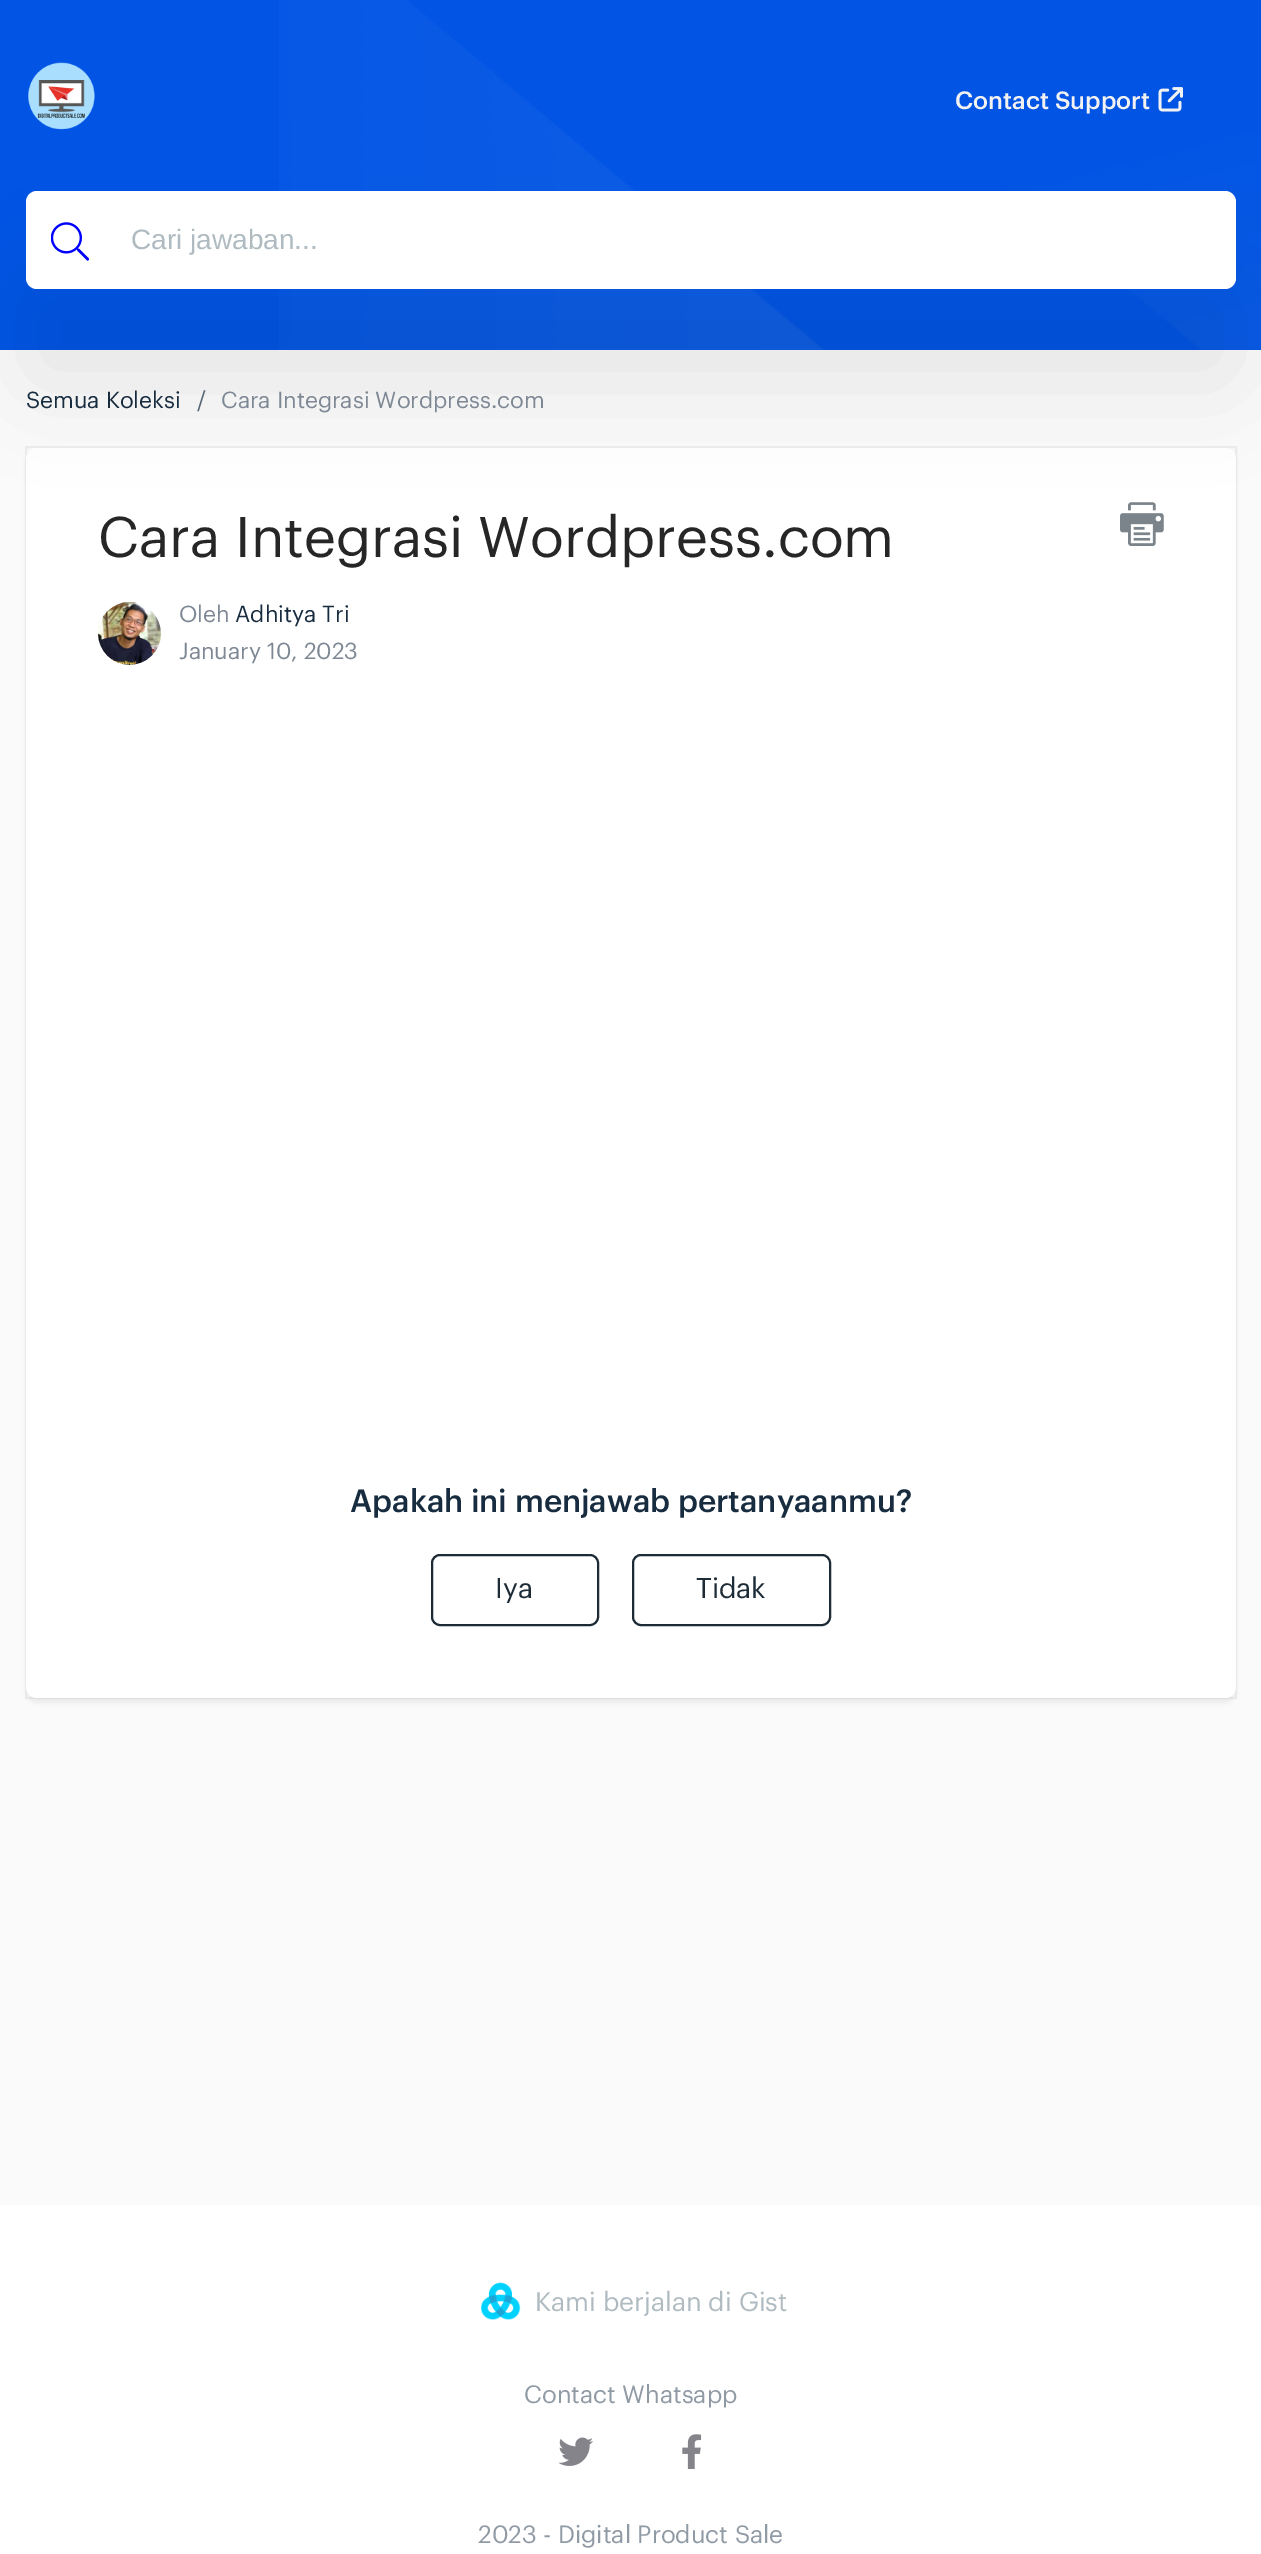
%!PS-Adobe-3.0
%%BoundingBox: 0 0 1261 2554
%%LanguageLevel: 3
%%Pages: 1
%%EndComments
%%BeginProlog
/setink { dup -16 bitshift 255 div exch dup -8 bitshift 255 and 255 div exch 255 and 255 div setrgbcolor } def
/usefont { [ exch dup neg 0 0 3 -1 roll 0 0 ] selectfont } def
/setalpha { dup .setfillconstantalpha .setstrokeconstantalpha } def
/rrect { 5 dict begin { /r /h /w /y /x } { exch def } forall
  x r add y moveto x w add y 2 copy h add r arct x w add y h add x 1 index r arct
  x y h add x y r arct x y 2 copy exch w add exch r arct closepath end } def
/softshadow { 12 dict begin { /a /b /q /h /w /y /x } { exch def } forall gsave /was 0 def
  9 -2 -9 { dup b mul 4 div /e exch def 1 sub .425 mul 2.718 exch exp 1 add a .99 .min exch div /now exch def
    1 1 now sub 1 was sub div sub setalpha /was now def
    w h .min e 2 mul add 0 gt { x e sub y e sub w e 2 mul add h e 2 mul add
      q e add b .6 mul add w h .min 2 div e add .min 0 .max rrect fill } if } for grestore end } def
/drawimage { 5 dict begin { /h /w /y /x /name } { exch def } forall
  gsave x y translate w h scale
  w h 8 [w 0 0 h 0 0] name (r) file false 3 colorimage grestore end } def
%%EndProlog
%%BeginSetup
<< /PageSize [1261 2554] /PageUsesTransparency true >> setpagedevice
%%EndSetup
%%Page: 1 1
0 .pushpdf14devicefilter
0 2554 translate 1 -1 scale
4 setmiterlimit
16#FAFAFA setink
0 0 1261 2554 rectfill
16#0154E4 setink
0 0 1261 350 rectfill
(img1.raw) 279 0 982 350 drawimage
(img2.raw) 28 62 67 68 drawimage
/Graphik-Medium 24.5 usefont
16#F2F2F2 setink
955 109 moveto (Contact Support) show
(img3.raw) 1158 87 25 25 drawimage
16#000000 setink
26 453 1210 1250 11 2.5 0.05 softshadow
0.05 setalpha
2 setlinewidth
26 447 1210 1251 rectstroke
1 setalpha
16#FFFFFF setink
26 448 1210 1250 11 rrect fill
16#000000 setink
26 285 1210 98 11 46.5 0.08 softshadow
16#FFFFFF setink
26 191 1210 98 11 rrect fill
(img4.raw) 51 222 38 39 drawimage
/LiberationSans-Regular 28 usefont
16#AFBBC1 setink
131 249 moveto (Cari jawaban...) show
/Graphik-Regular 22.75 usefont
16#182C40 setink
26 408 moveto (Semua Koleksi) show
16#5A6876 setink
197 408 moveto (/) show
16#7D8894 setink
221 408 moveto (Cara Integrasi Wordpress.com) show
/Graphik-Regular 56 usefont
16#262626 setink
98 557 moveto (Cara Integrasi Wordpress.com) show
(img5.raw) 1120 502 44 44 drawimage
(img6.raw) 98 602 63 63 drawimage
/Graphik-Regular 22.75 usefont
16#7D8894 setink
179 622 moveto (Oleh) show
16#182C40 setink
235 622 moveto (Adhitya Tri) show
16#7D8894 setink
179 659 moveto (January 10, 2023) show
/Graphik-Medium 31.5 usefont
16#182C40 setink
350 1512 moveto (Apakah ini menjawab pertanyaanmu?) show
16#1D2B36 setink
432 1555 166 70 8 rrect stroke
/Graphik-Regular 28 usefont
495 1598 moveto (Iya) show
633 1555 197 70 8 rrect stroke
696 1598 moveto (Tidak) show
16#FFFFFF setink
0 2205 1261 349 rectfill
(img7.raw) 480 2282 41 38 drawimage
/Graphik-Regular 26.25 usefont
16#AFBBC1 setink
535 2311 moveto (Kami berjalan di Gist) show
/Graphik-Regular 24.5 usefont
16#909AA5 setink
524 2403 moveto (Contact Whatsapp) show
(img8.raw) 558 2437 35 29 drawimage
(img9.raw) 682 2434 20 35 drawimage
478 2543 moveto (2023 - Digital Product Sale) show
.poppdf14devicefilter showpage
%%EOF
